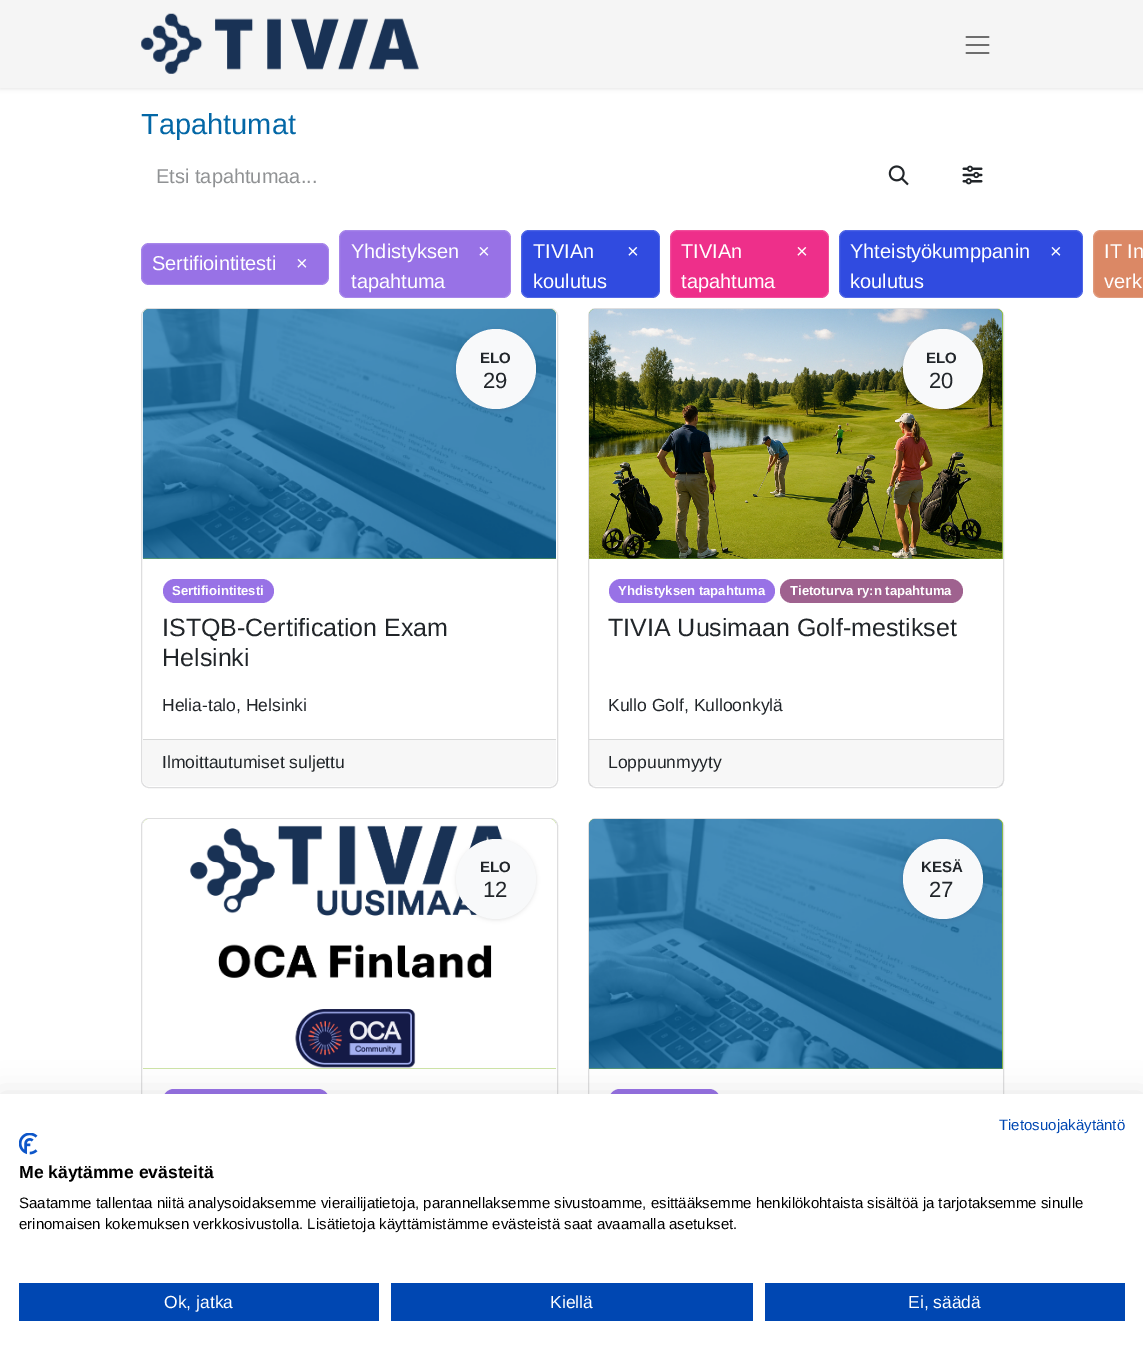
%!PS-Adobe-3.0
%%BoundingBox: 0 0 1143 1355
%%LanguageLevel: 3
%%Pages: 1
%%EndComments
%%BeginProlog
/setink { dup -16 bitshift 255 div exch dup -8 bitshift 255 and 255 div exch 255 and 255 div setrgbcolor } def
/usefont { [ exch dup neg 0 0 3 -1 roll 0 0 ] selectfont } def
/setalpha { dup .setfillconstantalpha .setstrokeconstantalpha } def
/disc { newpath 0 360 arc closepath } def
/rrect { 5 dict begin { /r /h /w /y /x } { exch def } forall
  x r add y moveto x w add y 2 copy h add r arct x w add y h add x 1 index r arct
  x y h add x y r arct x y 2 copy exch w add exch r arct closepath end } def
/softshadow { 12 dict begin { /a /b /q /h /w /y /x } { exch def } forall gsave /was 0 def
  9 -2 -9 { dup b mul 4 div /e exch def 1 sub .425 mul 2.718 exch exp 1 add a .99 .min exch div /now exch def
    1 1 now sub 1 was sub div sub setalpha /was now def
    w h .min e 2 mul add 0 gt { x e sub y e sub w e 2 mul add h e 2 mul add
      q e add b .6 mul add w h .min 2 div e add .min 0 .max rrect fill } if } for grestore end } def
/drawimage { 5 dict begin { /h /w /y /x /name } { exch def } forall
  gsave x y translate w h scale
  w h 8 [w 0 0 h 0 0] name (r) file false 3 colorimage grestore end } def
%%EndProlog
%%BeginSetup
<< /PageSize [1143 1355] /PageUsesTransparency true >> setpagedevice
%%EndSetup
%%Page: 1 1
0 .pushpdf14devicefilter
0 1355 translate 1 -1 scale
4 setmiterlimit
16#FFFFFF setink
0 0 1143 1355 rectfill
16#000000 setink
0 1 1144 88 0 2 0.1 softshadow
16#F5F5F5 setink
0 0 1143 88 rectfill
(img1.raw) 141 13 278 61 drawimage
(img2.raw) 965 36 25 18 drawimage
/Arimo-Regular 29 usefont
16#0367A6 setink
141 134 moveto (Tapahtumat) show
/Arimo-Regular 20 usefont
16#909294 setink
156 183 moveto (Etsi tapahtumaa...) show
(img3.raw) 888 165 21 21 drawimage
(img4.raw) 962 165 21 20 drawimage
16#9872E6 setink
141 243 188 42 8 rrect fill
0.15 setalpha
16#FFFFFF setink
141.5 243.5 187 41 7.5 rrect stroke
1 setalpha
152 270 moveto (Sertifiointitesti) show
296 270 moveto (×) show
16#9872E6 setink
339 230 172 68 8 rrect fill
0.15 setalpha
16#FFFFFF setink
339.5 230.5 171 67 7.5 rrect stroke
1 setalpha
[
    [(Yhdistyksen) 351 258]
    [(×) 478 258]
    [(tapahtuma) 351 288]
] { aload pop moveto show } forall
16#304BE0 setink
521 230 139 68 8 rrect fill
0.15 setalpha
16#FFFFFF setink
521.5 230.5 138 67 7.5 rrect stroke
1 setalpha
[
    [(TIVIAn) 533 258]
    [(×) 627 258]
    [(koulutus) 533 288]
] { aload pop moveto show } forall
16#EE2F8A setink
670 230 159 68 8 rrect fill
0.15 setalpha
16#FFFFFF setink
670.5 230.5 158 67 7.5 rrect stroke
1 setalpha
[
    [(TIVIAn) 681 258]
    [(×) 796 258]
    [(tapahtuma) 681 288]
] { aload pop moveto show } forall
16#304BE0 setink
839 230 244 68 8 rrect fill
0.15 setalpha
16#FFFFFF setink
839.5 230.5 243 67 7.5 rrect stroke
1 setalpha
[
    [(Yhteistyökumppanin) 850 258]
    [(×) 1050 258]
    [(koulutus) 850 288]
] { aload pop moveto show } forall
16#DB8865 setink
1101 230 moveto 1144 230 lineto 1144 298 lineto 1101 298 lineto 1096.5 298 1093 294.5 1093 290 curveto 1093 238 lineto 1093 233.5 1096.5 230 1101 230 curveto closepath fill
0.15 setalpha
16#FFFFFF setink
1093.5 230.5 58 67 7.5 rrect stroke
1 setalpha
1104 258 moveto (IT In) show
1104 288 moveto (verk) show
16#DEDEDF setink
141.5 308.5 416 479 7.5 rrect stroke
16#8FC038 setink
149 309 moveto 550 309 lineto 553.5 309 556 311.5 556 315 curveto 556 559 lineto 143 559 lineto 143 315 lineto 143 311.5 145.5 309 149 309 curveto closepath fill
(img5.raw) 142 309 414 250 drawimage
16#000000 setink
456 330 80 80 40 2 0.1 softshadow
16#F8F9FA setink
496 369 40 disc fill
/Arimo-Bold 15 usefont
16#212529 setink
480 363 moveto (ELO) show
/Arimo-Regular 22 usefont
483 388 moveto (29) show
16#9872E6 setink
163 579 111 24 12 rrect fill
/Arimo-Bold 13.1 usefont
16#FFFFFF setink
172 595 moveto (Sertifiointitesti) show
/Arimo-Regular 25 usefont
16#212529 setink
162 636 moveto (ISTQB-Certification Exam) show
162 666 moveto (Helsinki) show
/Arimo-Regular 17.5 usefont
162 711 moveto (Helia-talo, Helsinki) show
16#F7F7F7 setink
143 739 moveto 556 739 lineto 556 780 lineto 556 783.5 553.5 786 550 786 curveto 149 786 lineto 145.5 786 143 783.5 143 780 curveto closepath fill
16#D7D8D8 setink
143 739 413 1 rectfill
16#212529 setink
162 768 moveto (Ilmoittautumiset suljettu) show
16#DEDEDF setink
588.5 308.5 415 479 7.5 rrect stroke
16#8FC038 setink
595 309 moveto 997 309 lineto 1000.5 309 1003 311.5 1003 315 curveto 1003 559 lineto 589 559 lineto 589 315 lineto 589 311.5 591.5 309 595 309 curveto closepath fill
(img6.raw) 589 309 414 250 drawimage
16#000000 setink
903 330 80 80 40 2 0.1 softshadow
16#F8F9FA setink
943 369 40 disc fill
/Arimo-Bold 15 usefont
16#212529 setink
926 363 moveto (ELO) show
/Arimo-Regular 22 usefont
929 388 moveto (20) show
16#9872E6 setink
609 579 166 24 12 rrect fill
/Arimo-Bold 13.1 usefont
16#FFFFFF setink
618 595 moveto (Yhdistyksen tapahtuma) show
16#9F628F setink
780 579 183 24 12 rrect fill
16#FFFFFF setink
790 595 moveto (Tietoturva ry:n tapahtuma) show
/Arimo-Regular 25 usefont
16#212529 setink
608 636 moveto (TIVIA Uusimaan Golf-mestikset) show
/Arimo-Regular 17.5 usefont
608 711 moveto (Kullo Golf, Kulloonkylä) show
0.03 setalpha
16#000000 setink
589 740 414 46 rectfill
1 setalpha
16#D7D8D8 setink
589 739 414 1 rectfill
16#212529 setink
608 768 moveto (Loppuunmyyty) show
16#DEDEDF setink
141.5 818.5 416 487 7.5 rrect stroke
16#8FC038 setink
149 819 moveto 550 819 lineto 553.5 819 556 821.5 556 825 curveto 556 1069 lineto 143 1069 lineto 143 825 lineto 143 821.5 145.5 819 149 819 curveto closepath fill
(img7.raw) 143 819 413 250 drawimage
16#000000 setink
456 840 80 80 40 2 0.1 softshadow
16#F8F9FA setink
496 879 40 disc fill
/Arimo-Bold 15 usefont
16#212529 setink
480 872 moveto (ELO) show
/Arimo-Regular 22 usefont
483 897 moveto (12) show
16#9872E6 setink
163 1089 166 22 11 rrect fill
16#DEDEDF setink
588.5 818.5 415 487 7.5 rrect stroke
16#8FC038 setink
595 819 moveto 997 819 lineto 1000.5 819 1003 821.5 1003 825 curveto 1003 1069 lineto 589 1069 lineto 589 825 lineto 589 821.5 591.5 819 595 819 curveto closepath fill
(img8.raw) 589 819 414 250 drawimage
16#000000 setink
903 840 80 80 40 2 0.1 softshadow
16#F8F9FA setink
943 879 40 disc fill
/Arimo-Bold 15 usefont
16#212529 setink
921 872 moveto (KESÄ) show
/Arimo-Regular 22 usefont
929 897 moveto (27) show
16#9872E6 setink
609 1089 111 22 11 rrect fill
16#000000 setink
0 1094 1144 261 0 15 0.1 softshadow
16#FFFFFF setink
0 1094 1143 261 rectfill
/Arimo-Regular 15 usefont
16#0047B2 setink
999 1130 moveto (Tietosuojakäytäntö) show
(img9.raw) 19 1133 19 22 drawimage
/Arimo-Bold 17.5 usefont
16#000000 setink
19 1178 moveto (Me käytämme evästeitä) show
/Arimo-Regular 15 usefont
19 1208 moveto (Saatamme tallentaa niitä analysoidaksemme vierailijatietoja, parannellaksemme sivustoamme, esittääksemme henkilökohtaista sisältöä ja tarjotaksemme sinulle) show
19 1229 moveto (erinomaisen kokemuksen verkkosivustolla. Lisätietoja käyttämistämme evästeistä saat avaamalla asetukset.) show
16#0047B2 setink
19 1283 360 38 rectfill
/Arimo-Regular 17.5 usefont
16#FFFFFF setink
164 1308 moveto (Ok, jatka) show
16#0047B2 setink
391 1283 362 38 rectfill
16#FFFFFF setink
550 1308 moveto (Kiellä) show
16#0047B2 setink
765 1283 360 38 rectfill
16#FFFFFF setink
908 1308 moveto (Ei, säädä) show
.poppdf14devicefilter showpage
%%EOF
